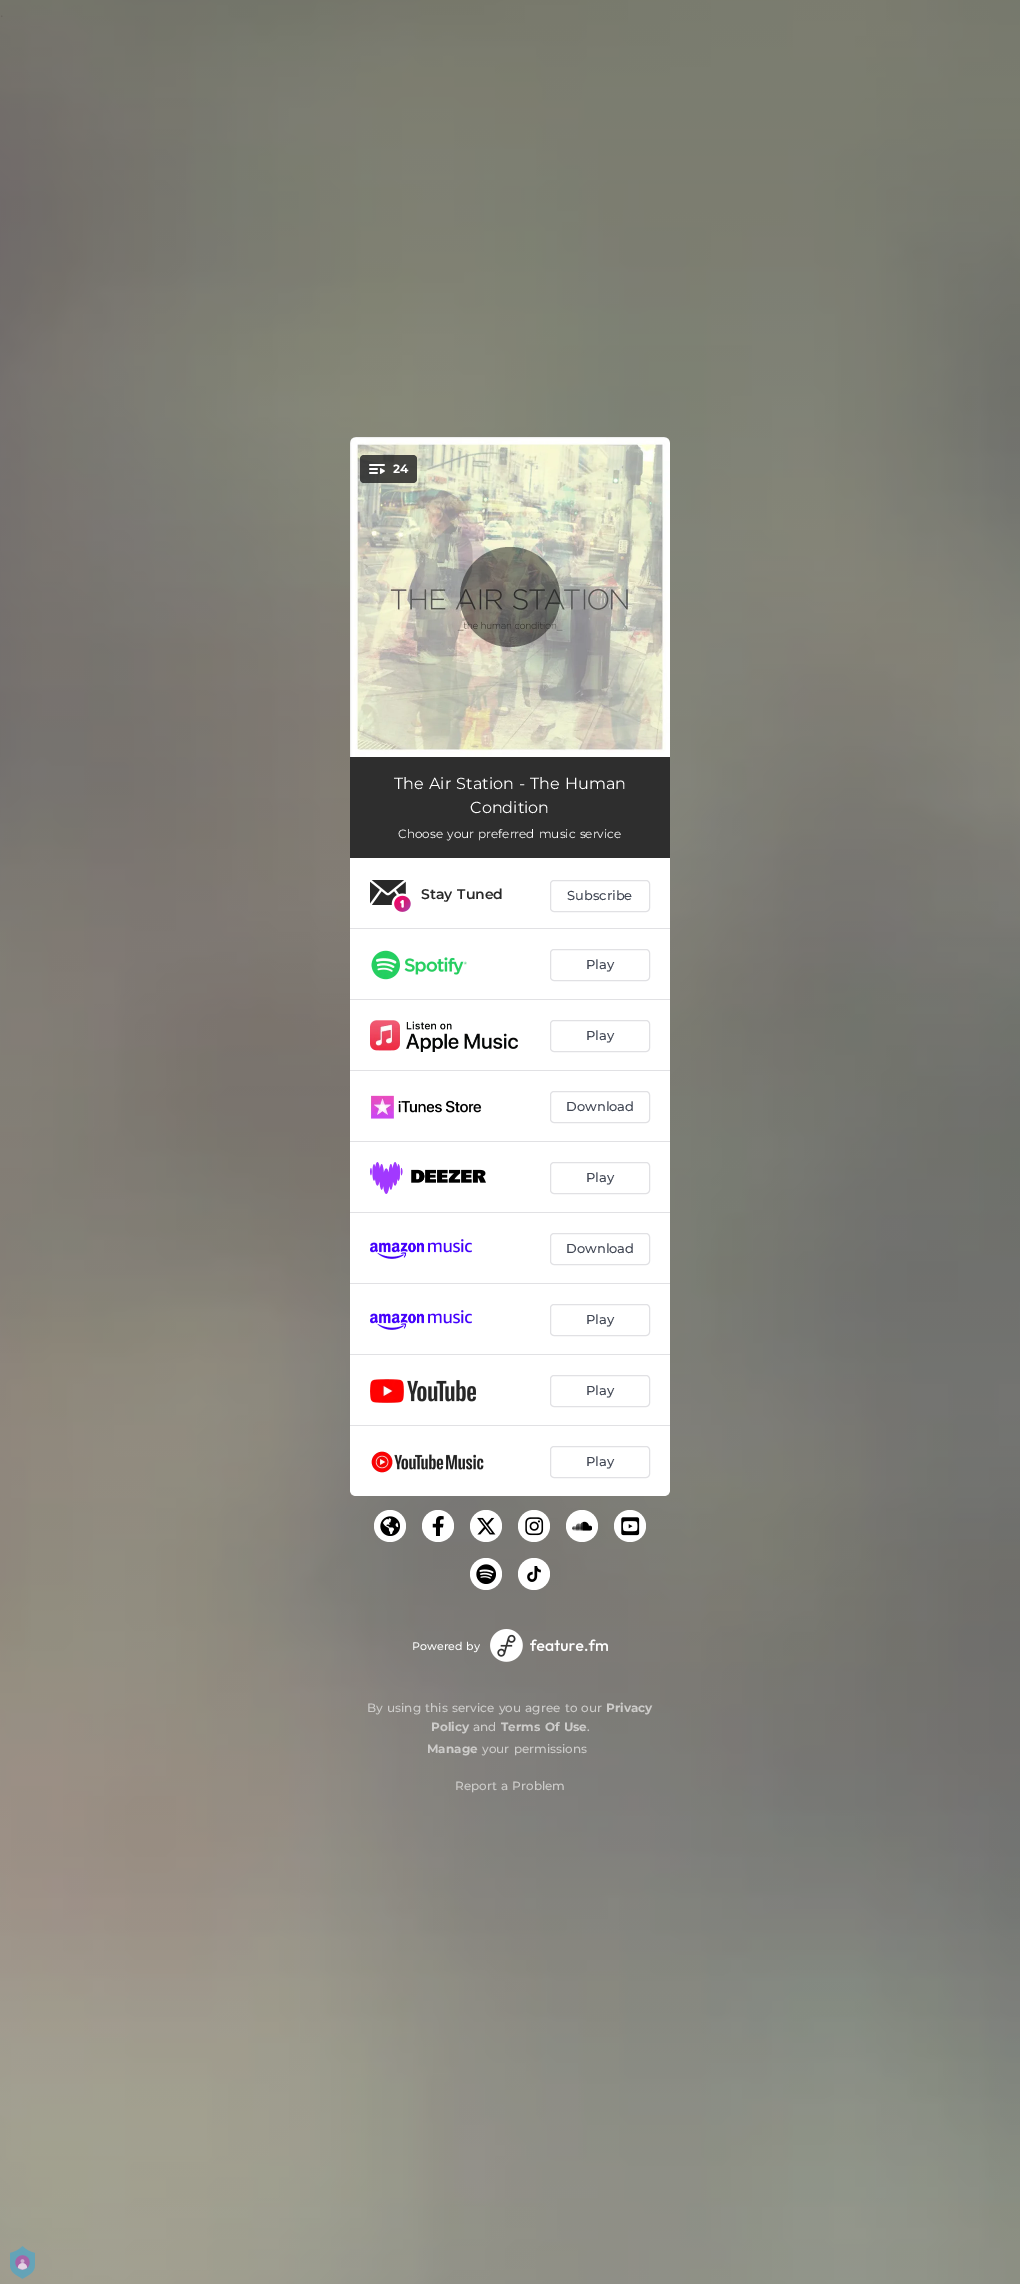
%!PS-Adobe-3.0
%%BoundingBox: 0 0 1020 2284
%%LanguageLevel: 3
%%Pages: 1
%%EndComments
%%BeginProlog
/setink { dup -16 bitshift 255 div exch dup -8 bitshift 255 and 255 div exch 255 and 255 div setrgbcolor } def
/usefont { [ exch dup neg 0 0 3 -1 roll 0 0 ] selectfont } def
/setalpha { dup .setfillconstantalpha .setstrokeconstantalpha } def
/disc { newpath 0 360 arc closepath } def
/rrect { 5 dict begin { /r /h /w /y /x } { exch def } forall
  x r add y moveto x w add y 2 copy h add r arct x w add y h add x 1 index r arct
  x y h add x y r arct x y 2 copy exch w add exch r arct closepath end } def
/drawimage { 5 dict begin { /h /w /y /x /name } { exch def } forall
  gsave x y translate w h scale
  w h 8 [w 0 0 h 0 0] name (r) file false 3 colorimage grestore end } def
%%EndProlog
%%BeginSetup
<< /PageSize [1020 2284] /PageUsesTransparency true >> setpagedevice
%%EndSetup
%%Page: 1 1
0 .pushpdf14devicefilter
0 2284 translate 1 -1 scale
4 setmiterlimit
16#FFFFFF setink
0 0 1020 2284 rectfill
(img1.raw) 0 0 1020 2284 drawimage
(img2.raw) 350 437 320 320 drawimage
0.85 setalpha
16#282828 setink
360 455 57 28 4 rrect fill
1 setalpha
(img3.raw) 369 464 16 10 drawimage
/Montserrat-Bold 12 usefont
16#FFFFFF setink
393 473 moveto (24) show
0.45 setalpha
16#000000 setink
510 597 50 disc fill
1 setalpha
16#2E2E2E setink
350 757 320 101 rectfill
/Montserrat-Regular 16 usefont
16#FFFFFF setink
394 789 moveto 1 0 32 (The Air Station - The Human) widthshow
470 813 moveto (Condition) show
/Montserrat-Regular 12 usefont
398 838 moveto 1 0 32 (Choose your preferred music service) widthshow
350 858 moveto 670 858 lineto 670 1490 lineto 670 1493.5 667.5 1496 664 1496 curveto 356 1496 lineto 352.5 1496 350 1493.5 350 1490 curveto closepath fill
16#E1E1E4 setink
350 928 320 1 rectfill
(img4.raw) 370 880 41 32 drawimage
/Montserrat-SemiBold 14 usefont
16#282828 setink
421 899 moveto 1 0 32 (Stay Tuned) widthshow
16#E1E1E4 setink
550.5 880.5 99 31 3.5 rrect stroke
/Montserrat-Medium 13 usefont
16#414754 setink
567 900 moveto (Subscribe) show
16#E1E1E4 setink
350 999 320 1 rectfill
(img5.raw) 371 950 96 30 drawimage
550.5 949.5 99 31 3.5 rrect stroke
16#414754 setink
586 969 moveto (Play) show
16#E1E1E4 setink
350 1070 320 1 rectfill
(img6.raw) 370 1020 148 32 drawimage
550.5 1020.5 99 31 3.5 rrect stroke
16#414754 setink
586 1040 moveto (Play) show
16#E1E1E4 setink
350 1141 320 1 rectfill
(img7.raw) 371 1095 111 24 drawimage
550.5 1091.5 99 31 3.5 rrect stroke
16#414754 setink
566 1111 moveto (Download) show
16#E1E1E4 setink
350 1212 320 1 rectfill
(img8.raw) 370 1162 116 32 drawimage
550.5 1162.5 99 31 3.5 rrect stroke
16#414754 setink
586 1182 moveto (Play) show
16#E1E1E4 setink
350 1283 320 1 rectfill
(img9.raw) 370 1239 102 20 drawimage
550.5 1233.5 99 31 3.5 rrect stroke
16#414754 setink
566 1253 moveto (Download) show
16#E1E1E4 setink
350 1354 320 1 rectfill
(img9.raw) 370 1310 102 20 drawimage
550.5 1304.5 99 31 3.5 rrect stroke
16#414754 setink
586 1324 moveto (Play) show
16#E1E1E4 setink
350 1425 320 1 rectfill
(img10.raw) 370 1379 106 24 drawimage
550.5 1375.5 99 31 3.5 rrect stroke
16#414754 setink
586 1395 moveto (Play) show
(img11.raw) 371 1451 113 22 drawimage
16#E1E1E4 setink
550.5 1446.5 99 31 3.5 rrect stroke
16#414754 setink
586 1466 moveto (Play) show
16#FFFFFF setink
390 1526 16 disc fill
(img12.raw) 380 1516 20 20 drawimage
438 1526 16 disc fill
(img13.raw) 432 1516 12 20 drawimage
486 1526 16 disc fill
(img14.raw) 477 1517 19 18 drawimage
534 1526 16 disc fill
(img15.raw) 525 1517 19 19 drawimage
582 1526 16 disc fill
(img16.raw) 572 1521 20 10 drawimage
630 1526 16 disc fill
(img17.raw) 621 1517 19 19 drawimage
486 1574 16 disc fill
(img18.raw) 476 1564 20 20 drawimage
534 1574 16 disc fill
(img19.raw) 527 1566 14 16 drawimage
/Montserrat-Medium 11 usefont
412 1650 moveto 1 0 32 (Powered by) widthshow
(img20.raw) 490 1629 118 33 drawimage
/Montserrat-Medium 12 usefont
16#CDCCCA setink
367 1712 moveto 1 0 32 (By using this service you agree to our) widthshow
/Montserrat-Bold 12 usefont
606 1712 moveto (Privacy) show
431 1731 moveto (Policy) show
/Montserrat-Medium 12 usefont
473 1731 moveto (and) show
/Montserrat-Bold 12 usefont
501 1731 moveto 1 0 32 (Terms Of Use) widthshow
/Montserrat-Medium 12 usefont
587 1731 moveto (.) show
/Montserrat-Bold 12 usefont
427 1753 moveto (Manage) show
/Montserrat-Medium 12 usefont
482 1753 moveto 1 0 32 (your permissions) widthshow
455 1790 moveto 1 0 32 (Report a Problem) widthshow
(img21.raw) 10 2246 25 33 drawimage
.poppdf14devicefilter showpage
%%EOF
